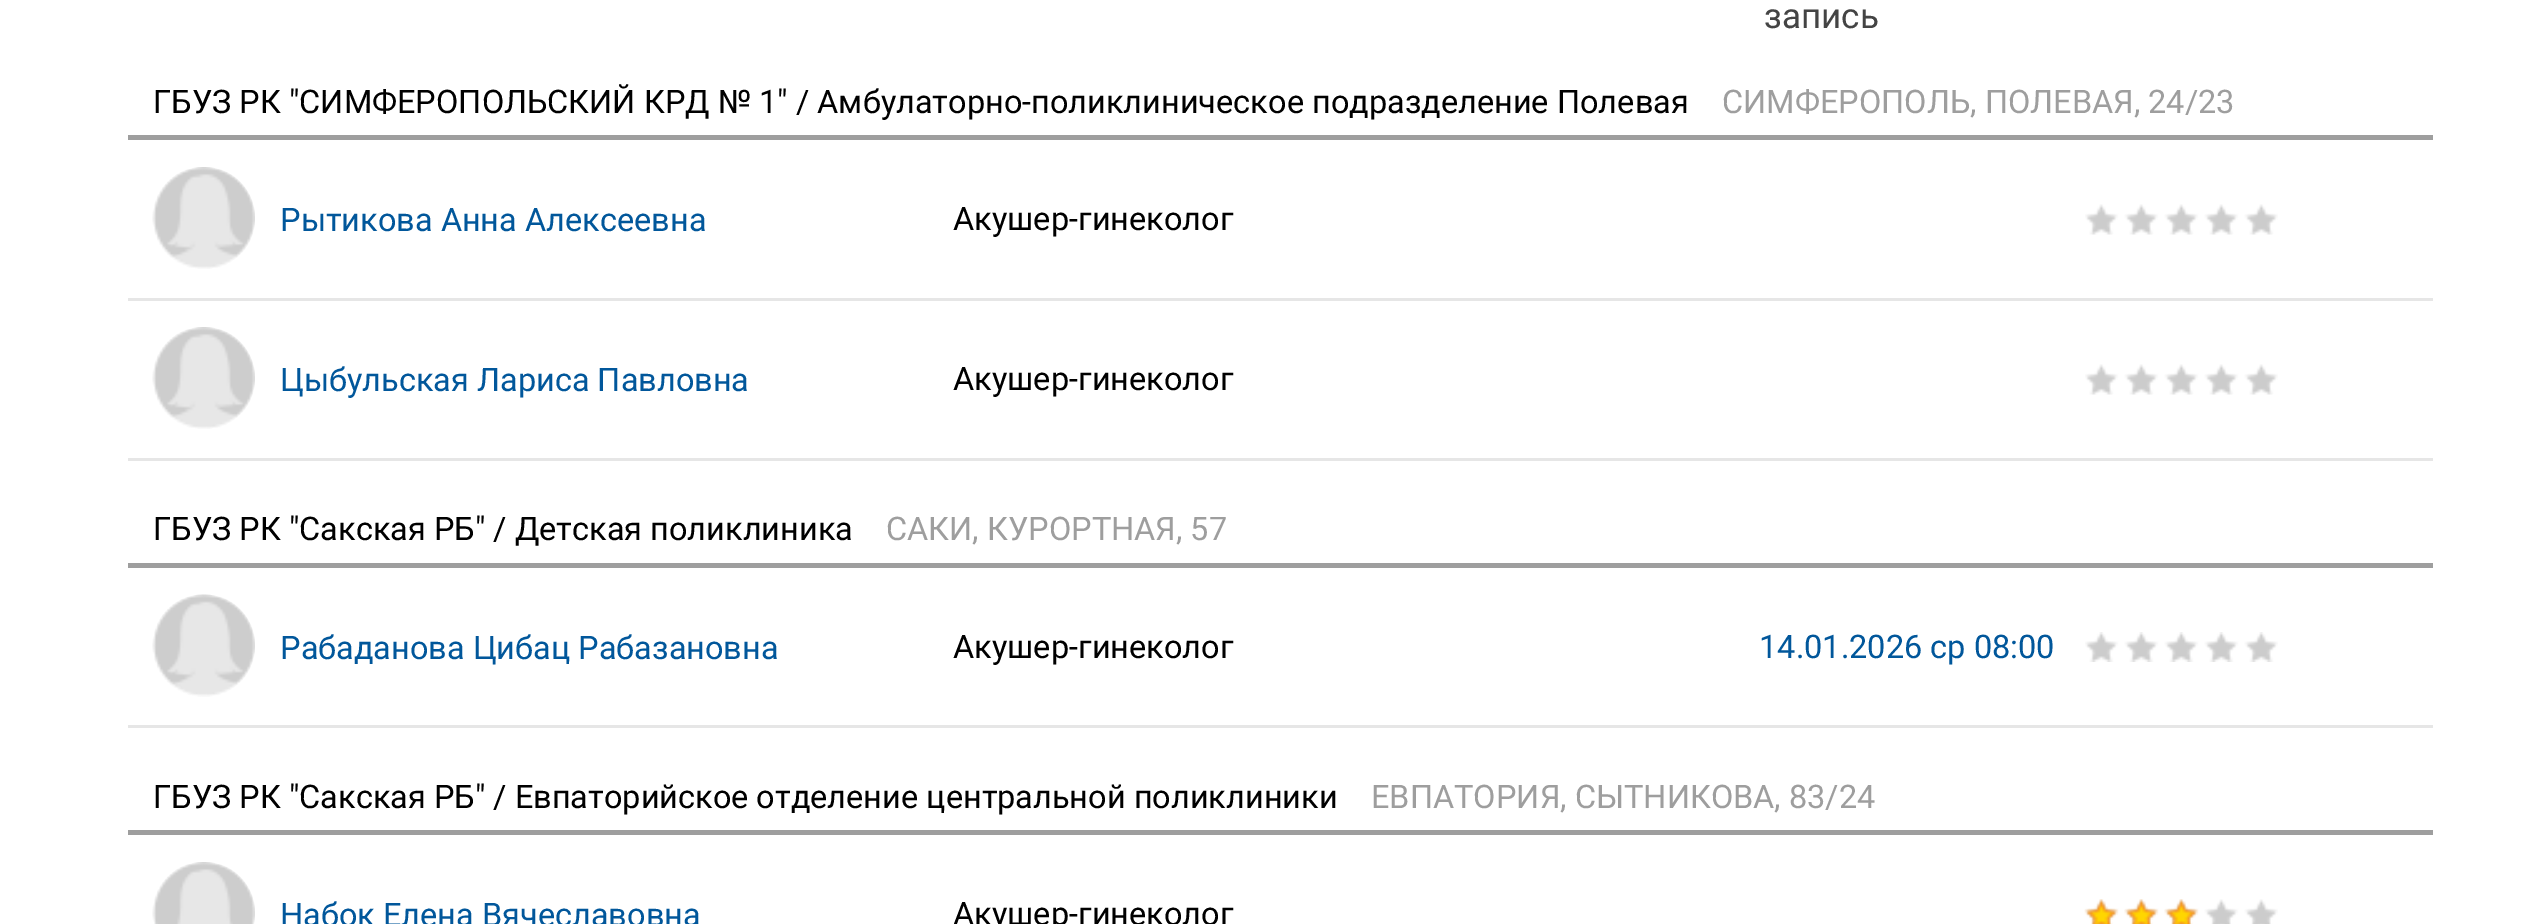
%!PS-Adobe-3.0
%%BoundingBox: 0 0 2525 924
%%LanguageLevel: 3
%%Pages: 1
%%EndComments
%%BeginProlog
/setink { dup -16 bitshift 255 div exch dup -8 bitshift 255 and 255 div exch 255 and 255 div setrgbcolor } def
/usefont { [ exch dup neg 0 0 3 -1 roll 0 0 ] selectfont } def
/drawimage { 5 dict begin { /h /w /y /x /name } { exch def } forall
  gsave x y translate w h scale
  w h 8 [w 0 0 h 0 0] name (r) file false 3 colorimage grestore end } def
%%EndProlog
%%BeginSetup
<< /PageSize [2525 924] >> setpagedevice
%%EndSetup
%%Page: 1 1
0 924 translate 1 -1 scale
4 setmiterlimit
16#FFFFFF setink
0 0 2525 924 rectfill
/Roboto-Regular 35 usefont
16#444444 setink
1764 28 moveto (запись) show
16#9E9E9E setink
128 135 2305 5 rectfill
/Roboto-Regular 32.5 usefont
16#000000 setink
153 113 moveto (ГБУЗ РК "СИМФЕРОПОЛЬСКИЙ КРД № 1" / Амбулаторно-поликлиническое подразделение Полевая) show
16#9E9E9E setink
1722 113 moveto (СИМФЕРОПОЛЬ, ПОЛЕВАЯ, 24/23) show
16#E6E6E6 setink
128 298 2305 3 rectfill
(img1.raw) 152 167 103 102 drawimage
16#01579B setink
280 231 moveto (Рытикова Анна Алексеевна) show
16#000000 setink
953 230 moveto (Акушер-гинеколог) show
(img2.raw) 2085 204 193 31 drawimage
16#E6E6E6 setink
128 458 2305 3 rectfill
(img3.raw) 152 327 103 102 drawimage
16#01579B setink
280 391 moveto (Цыбульская Лариса Павловна) show
16#000000 setink
953 390 moveto (Акушер-гинеколог) show
(img4.raw) 2085 364 193 31 drawimage
16#9E9E9E setink
128 563 2305 5 rectfill
16#000000 setink
153 540 moveto (ГБУЗ РК "Сакская РБ" / Детская поликлиника) show
16#9E9E9E setink
886 540 moveto (САКИ, КУРОРТНАЯ, 57) show
16#E6E6E6 setink
128 725 2305 3 rectfill
(img5.raw) 152 594 103 103 drawimage
16#01579B setink
280 659 moveto (Рабаданова Цибац Рабазановна) show
16#000000 setink
953 658 moveto (Акушер-гинеколог) show
16#01579B setink
1759 658 moveto (14.01.2026 ср 08:00) show
(img6.raw) 2085 632 193 30 drawimage
16#9E9E9E setink
128 830 2305 5 rectfill
16#000000 setink
153 808 moveto (ГБУЗ РК "Сакская РБ" / Евпаторийское отделение центральной поликлиники) show
16#9E9E9E setink
1371 808 moveto (ЕВПАТОРИЯ, СЫТНИКОВА, 83/24) show
(img7.raw) 152 862 103 62 drawimage
16#01579B setink
280 926 moveto (Набок Елена Вячеславовна) show
16#000000 setink
953 925 moveto (Акушер-гинеколог) show
(img8.raw) 2085 899 193 25 drawimage
(img9.raw) 2084 899 115 25 drawimage
showpage
%%EOF
